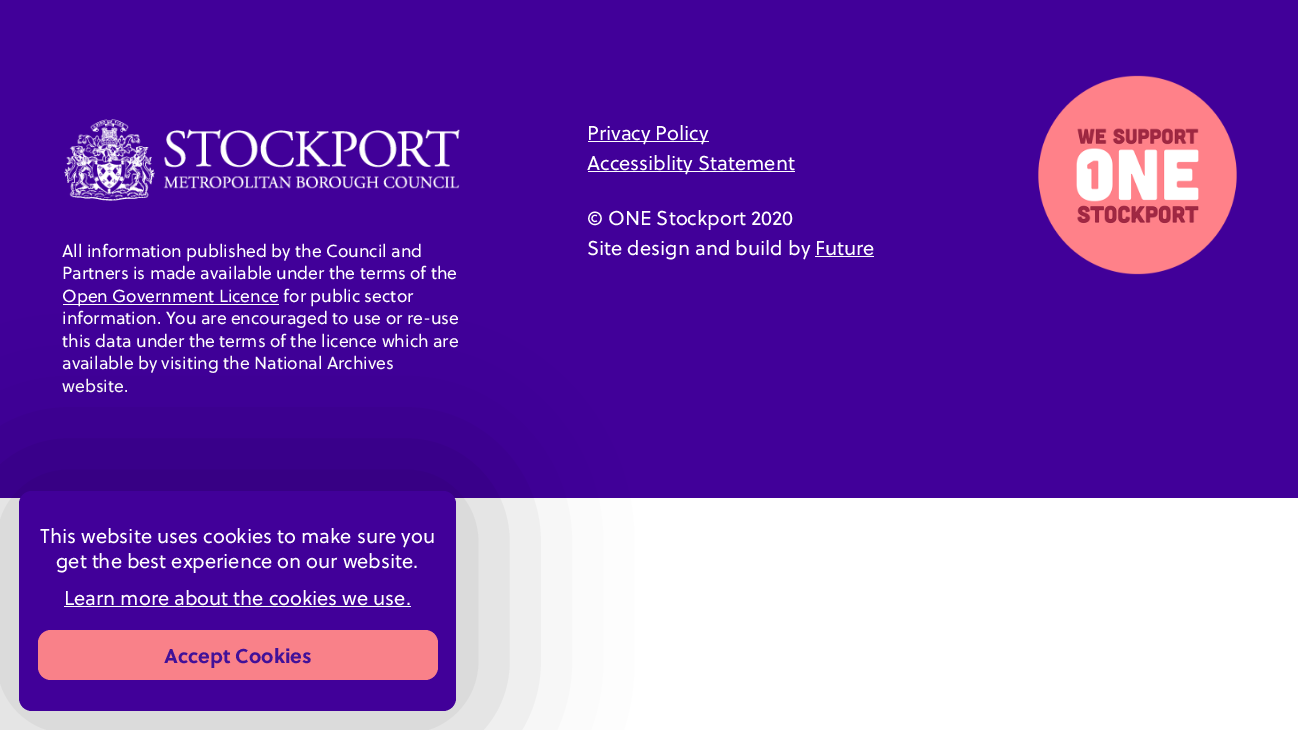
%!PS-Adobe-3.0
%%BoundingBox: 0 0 1298 730
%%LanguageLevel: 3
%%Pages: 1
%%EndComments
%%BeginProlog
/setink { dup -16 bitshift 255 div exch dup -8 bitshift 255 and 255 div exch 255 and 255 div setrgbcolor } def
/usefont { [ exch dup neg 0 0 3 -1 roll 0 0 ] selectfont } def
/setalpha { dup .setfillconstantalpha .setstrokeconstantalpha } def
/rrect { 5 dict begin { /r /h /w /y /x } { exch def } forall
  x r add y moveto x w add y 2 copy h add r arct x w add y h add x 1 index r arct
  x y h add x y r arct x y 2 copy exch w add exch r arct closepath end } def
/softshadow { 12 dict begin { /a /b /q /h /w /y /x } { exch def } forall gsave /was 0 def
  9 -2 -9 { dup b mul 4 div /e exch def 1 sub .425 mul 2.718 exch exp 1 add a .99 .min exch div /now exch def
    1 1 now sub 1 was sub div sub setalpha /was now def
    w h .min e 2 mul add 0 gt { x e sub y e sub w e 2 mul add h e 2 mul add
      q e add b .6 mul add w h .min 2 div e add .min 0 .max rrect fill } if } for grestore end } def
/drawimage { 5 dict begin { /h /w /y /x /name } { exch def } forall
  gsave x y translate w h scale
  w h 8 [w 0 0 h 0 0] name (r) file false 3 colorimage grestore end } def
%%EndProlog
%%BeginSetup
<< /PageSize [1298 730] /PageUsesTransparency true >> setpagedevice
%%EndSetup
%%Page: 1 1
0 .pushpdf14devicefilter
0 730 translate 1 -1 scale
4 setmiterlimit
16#FFFFFF setink
0 0 1298 730 rectfill
16#410099 setink
0 0 1298 498 rectfill
16#FFFFFF setink
588 141 121 1 rectfill
/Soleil-Regular 20 usefont
587 140 moveto (Privacy Policy) show
588 171 207 1 rectfill
[
    [(Accessiblity Statement) 587 170]
    [(© ONE Stockport 2020) 587 225]
    [(Site design and build by Future) 587 255]
] { aload pop moveto show } forall
815 256 59 1 rectfill
(img1.raw) 1038 75 199 200 drawimage
(img2.raw) 64 119 396 82 drawimage
/Soleil-Regular 17.5 usefont
62 257 moveto (All information published by the Council and) show
62 279 moveto (Partners is made available under the terms of the) show
63 304 216 1 rectfill
[
    [(Open Government Licence for public sector) 62 302]
    [(information. You are encouraged to use or re-use) 62 324]
    [(this data under the terms of the licence which are) 62 347]
    [(available by visiting the National Archives) 62 369]
    [(website.) 62 392]
] { aload pop moveto show } forall
16#000000 setink
-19 454 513 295 50 62.5 0.2 softshadow
16#410099 setink
19 491 437 220 13 rrect fill
/Soleil-Regular 20 usefont
16#FFFFFF setink
[
    [(This website uses cookies to make sure you) 40 543]
    [(get the best experience on our website.) 56 568]
    [(Learn more about the cookies we use.) 64 605]
] { aload pop moveto show } forall
64 606 347 1 rectfill
16#F98189 setink
38 630 400 50 13 rrect fill
/Soleil-Bold 20 usefont
16#411199 setink
164 663 moveto (Accept Cookies) show
.poppdf14devicefilter showpage
%%EOF
